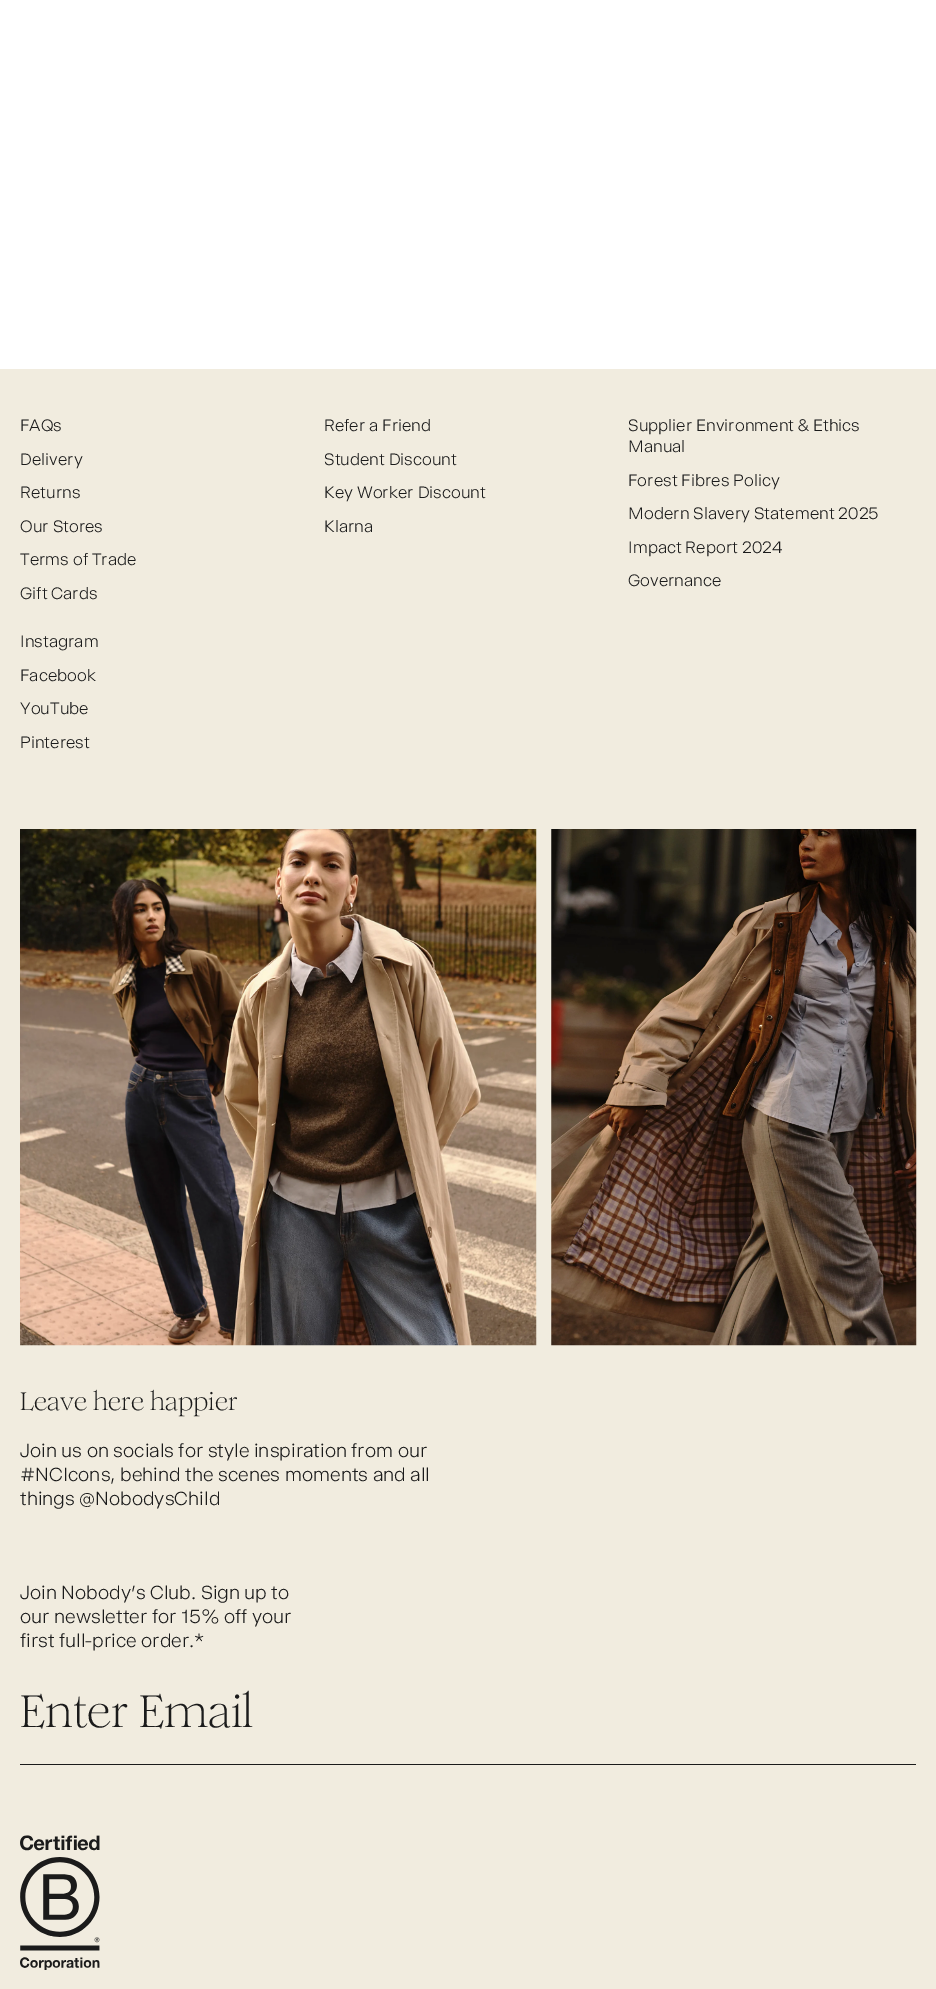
%!PS-Adobe-3.0
%%BoundingBox: 0 0 936 1989
%%LanguageLevel: 3
%%Pages: 1
%%EndComments
%%BeginProlog
/setink { dup -16 bitshift 255 div exch dup -8 bitshift 255 and 255 div exch 255 and 255 div setrgbcolor } def
/usefont { [ exch dup neg 0 0 3 -1 roll 0 0 ] selectfont } def
/drawimage { 5 dict begin { /h /w /y /x /name } { exch def } forall
  gsave x y translate w h scale
  w h 8 [w 0 0 h 0 0] name (r) file false 3 colorimage grestore end } def
%%EndProlog
%%BeginSetup
<< /PageSize [936 1989] >> setpagedevice
%%EndSetup
%%Page: 1 1
0 1989 translate 1 -1 scale
4 setmiterlimit
16#FFFFFF setink
0 0 936 1989 rectfill
16#F1ECDF setink
0 369 936 1620 rectfill
/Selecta-Light 17.5 usefont
16#1B1B1B setink
[
    [(FAQs) 20 431]
    [(Delivery) 20 465]
    [(Returns) 20 498]
    [(Our Stores) 20 532]
    [(Terms of Trade) 20 565]
    [(Gift Cards) 20 599]
    [(Refer a Friend) 324 431]
    [(Student Discount) 324 465]
    [(Key Worker Discount) 324 498]
    [(Klarna) 324 532]
    [(Supplier Environment & Ethics) 628 431]
    [(Manual) 628 452]
    [(Forest Fibres Policy) 628 486]
    [(Modern Slavery Statement 2025) 628 519]
    [(Impact Report 2024) 628 553]
    [(Governance) 628 586]
    [(Instagram) 20 647]
    [(Facebook) 20 681]
    [(YouTube) 20 714]
    [(Pinterest) 20 748]
] { aload pop moveto show } forall
(img1.raw) 20 829 517 517 drawimage
(img2.raw) 551 829 366 517 drawimage
/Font-Regular 25 usefont
20 1410 moveto (Leave here happier) show
/Selecta-Light 20 usefont
[
    [(Join us on socials for style inspiration from our) 20 1457]
    [(#NCIcons, behind the scenes moments and all) 20 1481]
    [(things @NobodysChild) 20 1505]
    [(Join Nobody's Club. Sign up to) 20 1599]
    [(our newsletter for 15% off your) 20 1623]
    [(first full-price order.*) 20 1647]
] { aload pop moveto show } forall
20 1764 896 1 rectfill
/Font-Regular 45 usefont
20 1727 moveto (Enter Email) show
(img3.raw) 20 1835 80 135 drawimage
showpage
%%EOF
